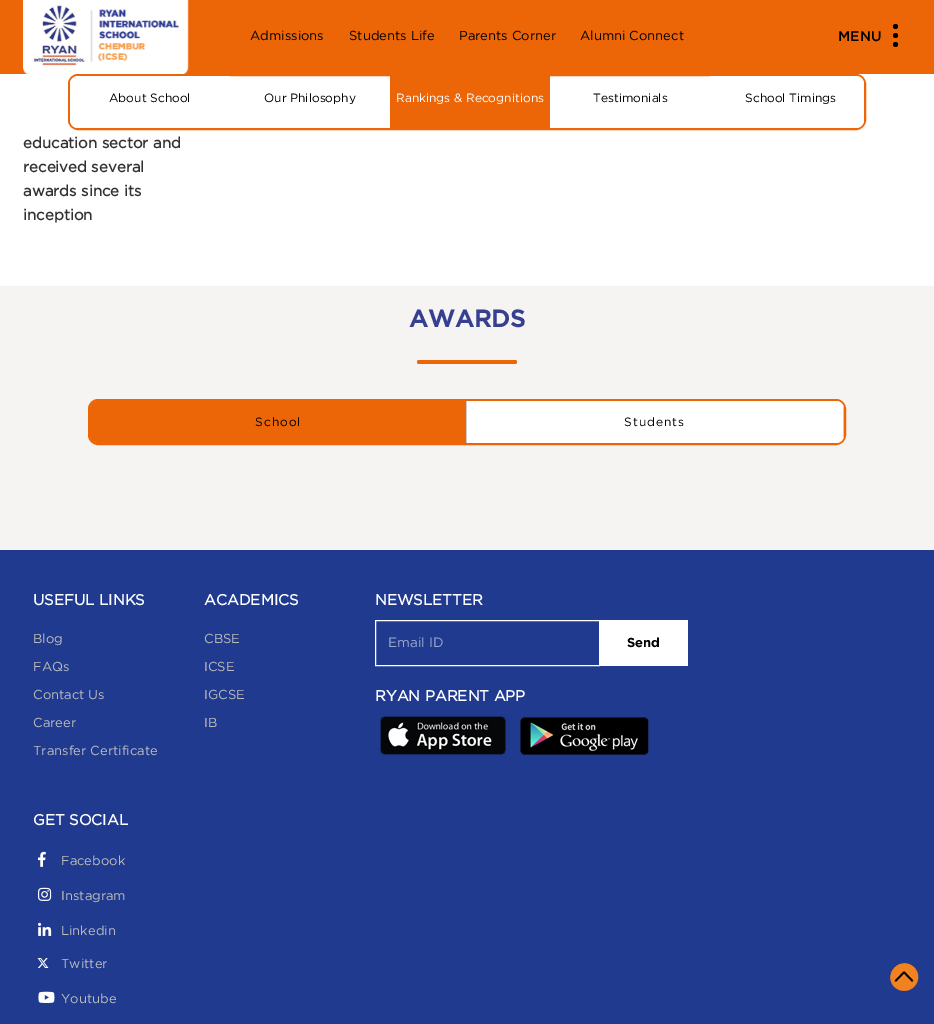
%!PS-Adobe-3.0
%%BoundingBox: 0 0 934 1024
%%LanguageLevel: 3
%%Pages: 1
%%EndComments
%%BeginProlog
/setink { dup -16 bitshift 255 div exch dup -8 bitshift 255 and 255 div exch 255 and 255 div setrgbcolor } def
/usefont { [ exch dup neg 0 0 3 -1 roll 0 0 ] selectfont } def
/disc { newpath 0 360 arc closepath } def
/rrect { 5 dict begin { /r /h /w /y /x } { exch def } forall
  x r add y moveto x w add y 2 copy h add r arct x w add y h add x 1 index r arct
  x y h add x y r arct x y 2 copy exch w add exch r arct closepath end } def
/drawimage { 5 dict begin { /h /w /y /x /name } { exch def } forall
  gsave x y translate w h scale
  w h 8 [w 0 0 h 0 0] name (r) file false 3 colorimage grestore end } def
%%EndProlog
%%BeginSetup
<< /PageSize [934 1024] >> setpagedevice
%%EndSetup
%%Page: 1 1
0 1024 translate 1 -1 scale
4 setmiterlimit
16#FFFFFF setink
0 0 934 1024 rectfill
16#EC6607 setink
0 0 934 74 rectfill
(img1.raw) 23 0 166 74 drawimage
/Gotham-Regular 13 usefont
16#000000 setink
[
    [(Admissions) 250 40]
    [(Students Life) 349 40]
    [(Parents Corner) 459 40]
    [(Alumni Connect) 580 40]
] { aload pop moveto show } forall
/Gotham-Medium 14 usefont
838 41 moveto (MENU) show
895.5 26.5 2.5 disc fill
895.5 35.5 2.5 disc fill
895.5 44.5 2.5 disc fill
16#EC6607 setink
2 setlinewidth
69 75 796 54 9 rrect stroke
16#FFFFFF setink
78 76 moveto 230 76 lineto 230 128 lineto 78 128 lineto 73.5 128 70 124.5 70 120 curveto 70 84 lineto 70 79.5 73.5 76 78 76 curveto closepath fill
/Gotham-Regular 12 usefont
16#000000 setink
109 102 moveto (About School) show
264 102 moveto (Our Philosophy) show
16#EC6607 setink
390 76 160 52 rectfill
16#FFFFFF setink
396 102 moveto (Rankings & Recognitions) show
16#000000 setink
593 102 moveto (Testimonials) show
16#FFFFFF setink
710 76 moveto 856 76 lineto 860.5 76 864 79.5 864 84 curveto 864 120 lineto 864 124.5 860.5 128 856 128 curveto 710 128 lineto closepath fill
16#000000 setink
745 102 moveto (School Timings) show
/Gotham-Bold 15 usefont
16#33302F setink
[
    [(education sector and) 23 148]
    [(received several) 23 172]
    [(awards since its) 23 196]
    [(inception) 23 220]
] { aload pop moveto show } forall
16#F5F4F3 setink
0 286 934 264 rectfill
/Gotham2-Bold 24 usefont
16#363F90 setink
409 327 moveto (AWARDS) show
16#EC6607 setink
417 360 100 4 2 rrect fill
89 400 756 44 9 rrect stroke
98 401 moveto 467 401 lineto 467 443 lineto 98 443 lineto 93.5 443 90 439.5 90 435 curveto 90 409 lineto 90 404.5 93.5 401 98 401 curveto closepath fill
16#CCCCCC setink
466 401 1 42 rectfill
/Gotham-Regular 12 usefont
16#000000 setink
255 426 moveto 1 0 (School) ashow
16#FFFFFF setink
467 401 moveto 836 401 lineto 840.5 401 844 404.5 844 409 curveto 844 435 lineto 844 439.5 840.5 443 836 443 curveto 467 443 lineto closepath fill
gsave
90 401 754 42 8 rrect clip newpath
16#CCCCCC setink
843 401 1 42 rectfill
grestore
16#000000 setink
624 426 moveto 1 0 (Students) ashow
16#203A8F setink
0 550 934 474 rectfill
/Gotham-Bold 15 usefont
16#FFFFFF setink
33 605 moveto (USEFUL LINKS) show
/Gotham-Regular 13 usefont
16#BDBDBD setink
[
    [(Blog) 33 643]
    [(FAQs) 33 671]
    [(Contact Us) 33 699]
    [(Career) 33 727]
    [(Transfer Certificate) 33 755]
] { aload pop moveto show } forall
/Gotham-Bold 15 usefont
16#FFFFFF setink
204 605 moveto (ACADEMICS) show
/Gotham-Regular 13 usefont
16#BDBDBD setink
[
    [(CBSE) 204 643]
    [(ICSE) 204 671]
    [(IGCSE) 204 699]
    [(IB) 204 727]
] { aload pop moveto show } forall
/Gotham-Bold 15 usefont
16#FFFFFF setink
375 605 moveto (NEWSLETTER) show
1 setlinewidth
375.5 620.5 224 45 rectstroke
/Gotham-Regular 13.5 usefont
16#9DA8CE setink
388 647 moveto (Email ID) show
16#FFFFFF setink
600 620 88 46 rectfill
/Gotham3-Bold 13 usefont
16#000000 setink
627 647 moveto (Send) show
/Gotham-Bold 15 usefont
16#FFFFFF setink
375 701 moveto (RYAN PARENT APP) show
(img2.raw) 380 716 126 39 drawimage
(img3.raw) 520 717 129 38 drawimage
33 825 moveto (GET SOCIAL) show
(img4.raw) 38 851 8 16 drawimage
/Gotham-Regular 13 usefont
16#BDBDBD setink
61 865 moveto (Facebook) show
(img5.raw) 38 887 14 14 drawimage
61 900 moveto (Instagram) show
(img6.raw) 38 922 14 14 drawimage
61 935 moveto (Linkedin) show
(img7.raw) 37 958 12 10 drawimage
61 968 moveto (Twitter) show
(img8.raw) 38 991 17 12 drawimage
61 1003 moveto (Youtube) show
(img9.raw) 890 963 29 28 drawimage
showpage
%%EOF
